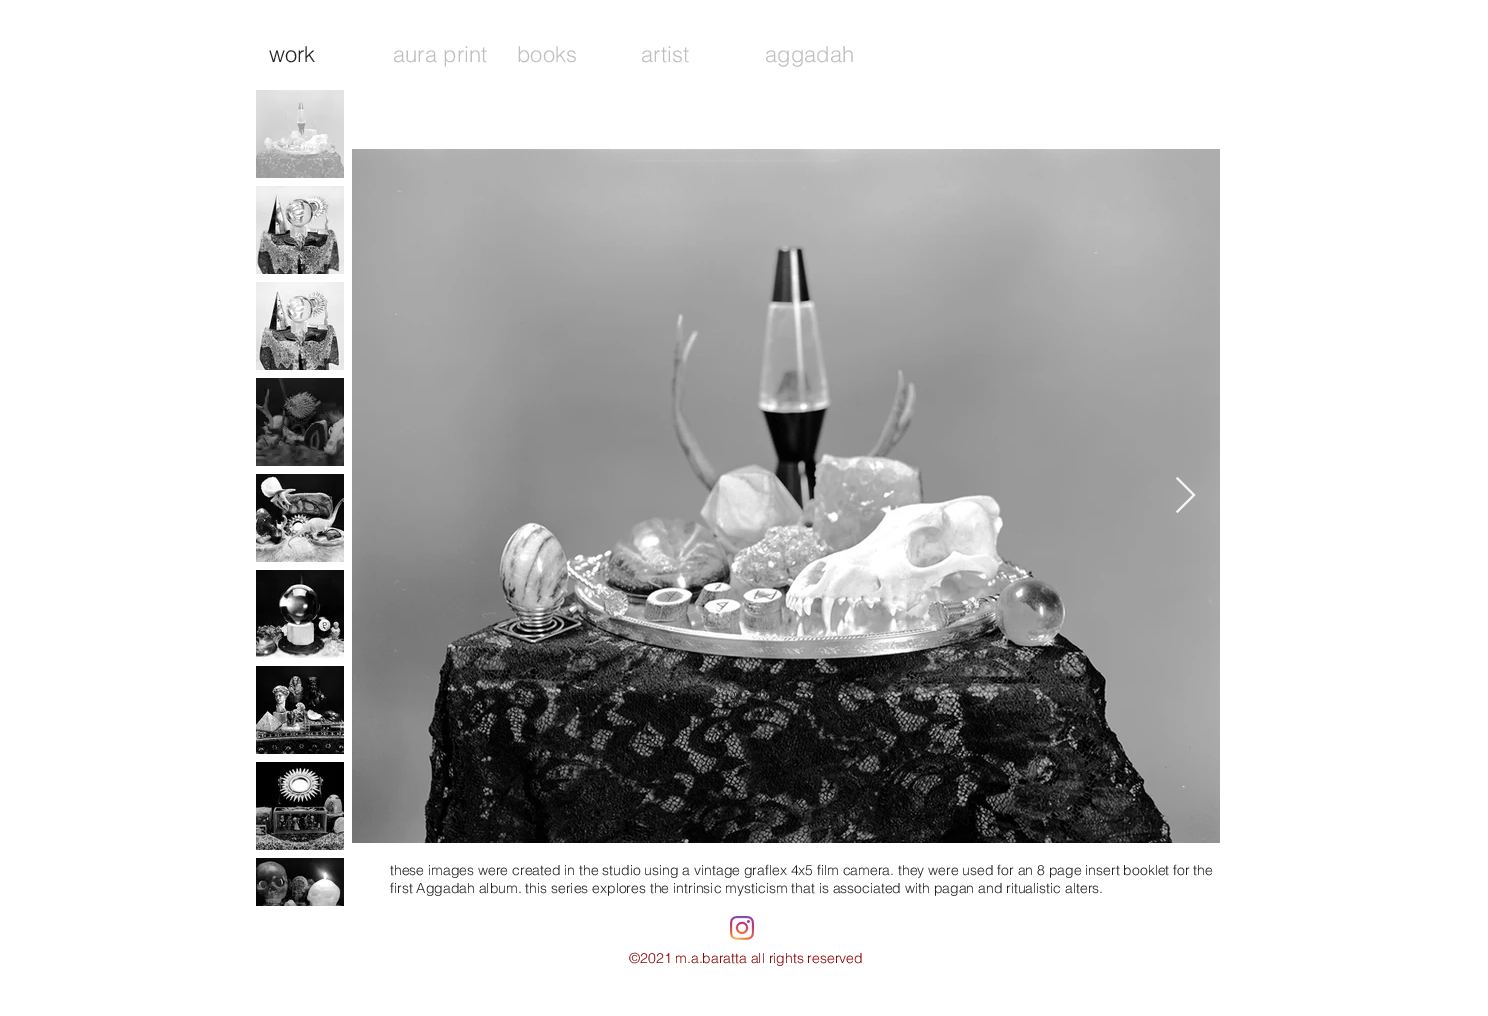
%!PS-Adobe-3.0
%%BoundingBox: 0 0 1488 1016
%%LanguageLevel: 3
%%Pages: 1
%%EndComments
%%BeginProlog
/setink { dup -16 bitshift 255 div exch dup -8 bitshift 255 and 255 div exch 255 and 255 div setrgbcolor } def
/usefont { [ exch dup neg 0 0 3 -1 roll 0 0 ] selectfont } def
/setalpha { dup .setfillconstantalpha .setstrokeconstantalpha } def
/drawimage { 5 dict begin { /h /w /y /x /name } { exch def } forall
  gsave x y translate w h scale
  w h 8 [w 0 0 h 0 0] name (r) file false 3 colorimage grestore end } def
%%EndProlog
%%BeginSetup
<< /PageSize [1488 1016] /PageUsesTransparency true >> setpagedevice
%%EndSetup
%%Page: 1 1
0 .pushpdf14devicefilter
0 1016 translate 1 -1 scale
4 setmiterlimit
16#FFFFFF setink
0 0 1488 1016 rectfill
/helvetica-Light 22 usefont
16#212121 setink
269 62 moveto (work) show
16#BFBFBF setink
[
    [(aura print) 393 62]
    [(books) 517 62]
    [(artist) 641 62]
    [(aggadah) 765 62]
] { aload pop moveto show } forall
(img1.raw) 256 90 88 88 drawimage
(img2.raw) 256 186 88 88 drawimage
(img3.raw) 256 282 88 88 drawimage
(img4.raw) 256 378 88 88 drawimage
(img5.raw) 256 474 88 88 drawimage
(img6.raw) 256 570 88 88 drawimage
(img7.raw) 256 666 88 88 drawimage
(img8.raw) 256 762 88 88 drawimage
(img9.raw) 256 858 88 48 drawimage
(img10.raw) 352 149 868 694 drawimage
0.9 setalpha
16#FFFFFF setink
1176 478.5 moveto 1177.5 477 lineto 1195.5 495 lineto 1177.5 513 lineto 1176 511.5 lineto 1192.5 495 lineto closepath fill
/LiberationSerif-Regular 11 usefont
1 setalpha
16#292929 setink
704 697 moveto 1.6 0 (photography) ashow
/helvetica-Light 14 usefont
16#212121 setink
390 875 moveto (these images were created in the studio using a vintage graflex 4x5 film camera. they were used for an 8 page insert booklet for the) show
390 893 moveto (first Aggadah album. this series explores the intrinsic mysticism that is associated with pagan and ritualistic alters.) show
(img11.raw) 730 916 24 24 drawimage
16#8B0000 setink
629 963 moveto (©2021 m.a.baratta all rights reserved) show
.poppdf14devicefilter showpage
%%EOF
